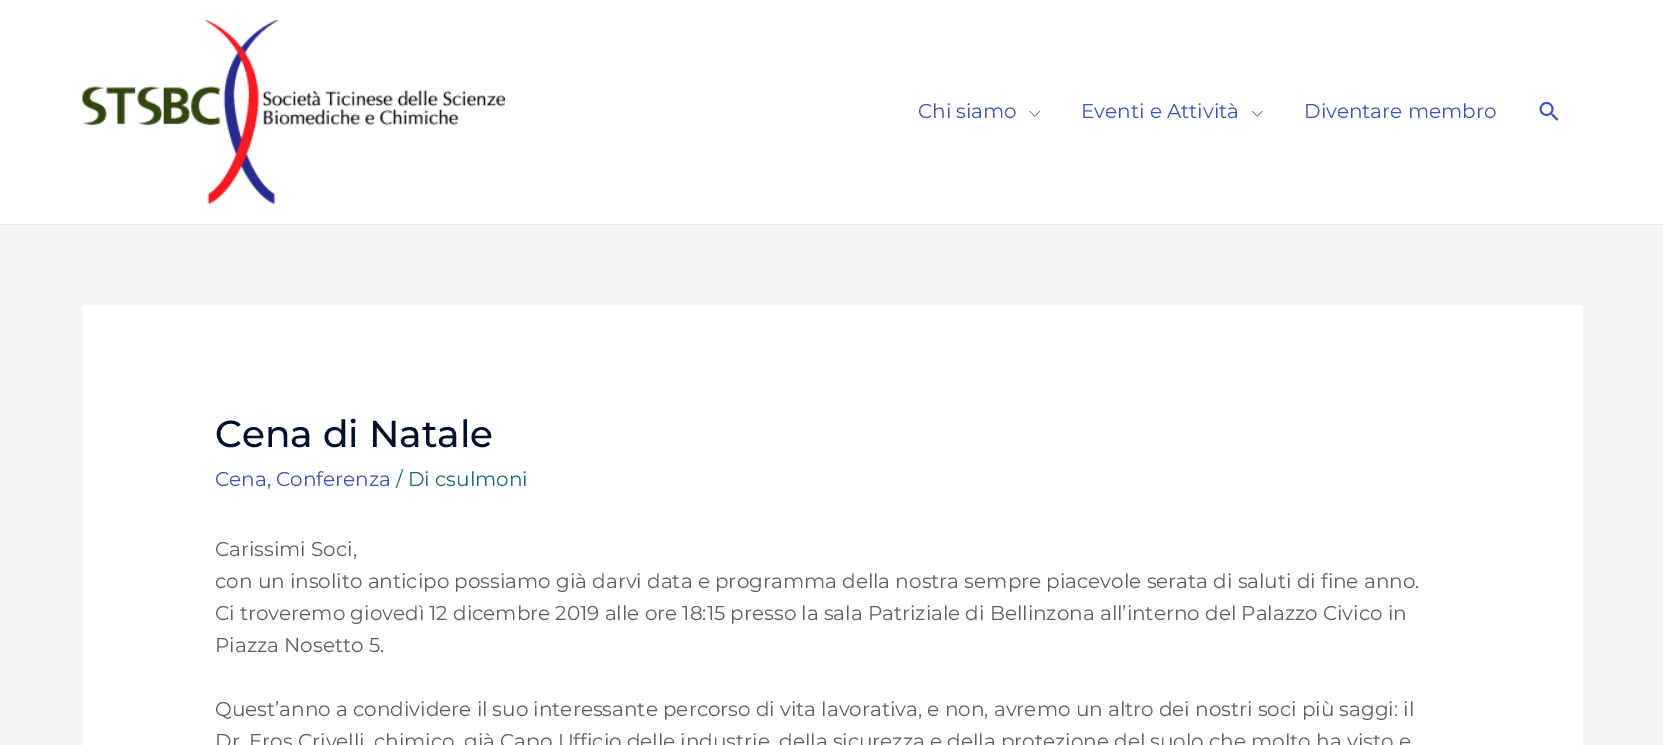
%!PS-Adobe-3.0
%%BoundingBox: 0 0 1663 745
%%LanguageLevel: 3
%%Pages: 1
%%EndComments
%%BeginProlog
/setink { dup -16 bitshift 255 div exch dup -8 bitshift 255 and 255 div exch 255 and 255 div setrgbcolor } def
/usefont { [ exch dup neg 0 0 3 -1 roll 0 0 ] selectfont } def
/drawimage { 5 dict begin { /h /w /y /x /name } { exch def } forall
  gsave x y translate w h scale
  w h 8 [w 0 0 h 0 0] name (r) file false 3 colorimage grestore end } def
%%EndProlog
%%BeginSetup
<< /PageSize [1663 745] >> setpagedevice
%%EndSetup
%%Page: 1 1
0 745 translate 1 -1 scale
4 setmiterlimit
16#F5F5F5 setink
0 0 1663 745 rectfill
16#FFFFFF setink
0 0 1663 224 rectfill
16#EAEAEA setink
0 224 1663 1 rectfill
(img1.raw) 82 20 423 184 drawimage
/Montserrat-Regular 20 usefont
16#4054B2 setink
918 118 moveto (Chi siamo) show
(img2.raw) 1029 110 12 7 drawimage
1081 118 moveto (Eventi e Attività) show
(img3.raw) 1251 110 12 7 drawimage
1304 118 moveto (Diventare membro) show
(img4.raw) 1539 101 20 20 drawimage
16#FFFFFF setink
83 305 1500 440 rectfill
/Montserrat-Medium 37.5 usefont
16#000F2B setink
215 447 moveto (Cena di Natale) show
/Montserrat-Regular 20 usefont
16#4054B2 setink
215 486 moveto (Cena) show
16#1A6C7A setink
267 486 moveto (,) show
16#4054B2 setink
276 486 moveto (Conferenza) show
16#1A6C7A setink
396 486 moveto (/ Di csulmoni) show
16#625F5F setink
[
    [(Carissimi Soci,) 215 556]
    [(con un insolito anticipo possiamo già darvi data e programma della nostra sempre piacevole serata di saluti di fine anno.) 215 588]
    [(Ci troveremo giovedì 12 dicembre 2019 alle ore 18:15 presso la sala Patriziale di Bellinzona all’interno del Palazzo Civico in) 215 620]
    [(Piazza Nosetto 5.) 215 652]
    [(Quest’anno a condividere il suo interessante percorso di vita lavorativa, e non, avremo un altro dei nostri soci più saggi: il) 215 716]
    [(Dr. Eros Crivelli, chimico, già Capo Ufficio delle industrie, della sicurezza e della protezione del suolo che molto ha visto e) 215 748]
] { aload pop moveto show } forall
showpage
%%EOF
